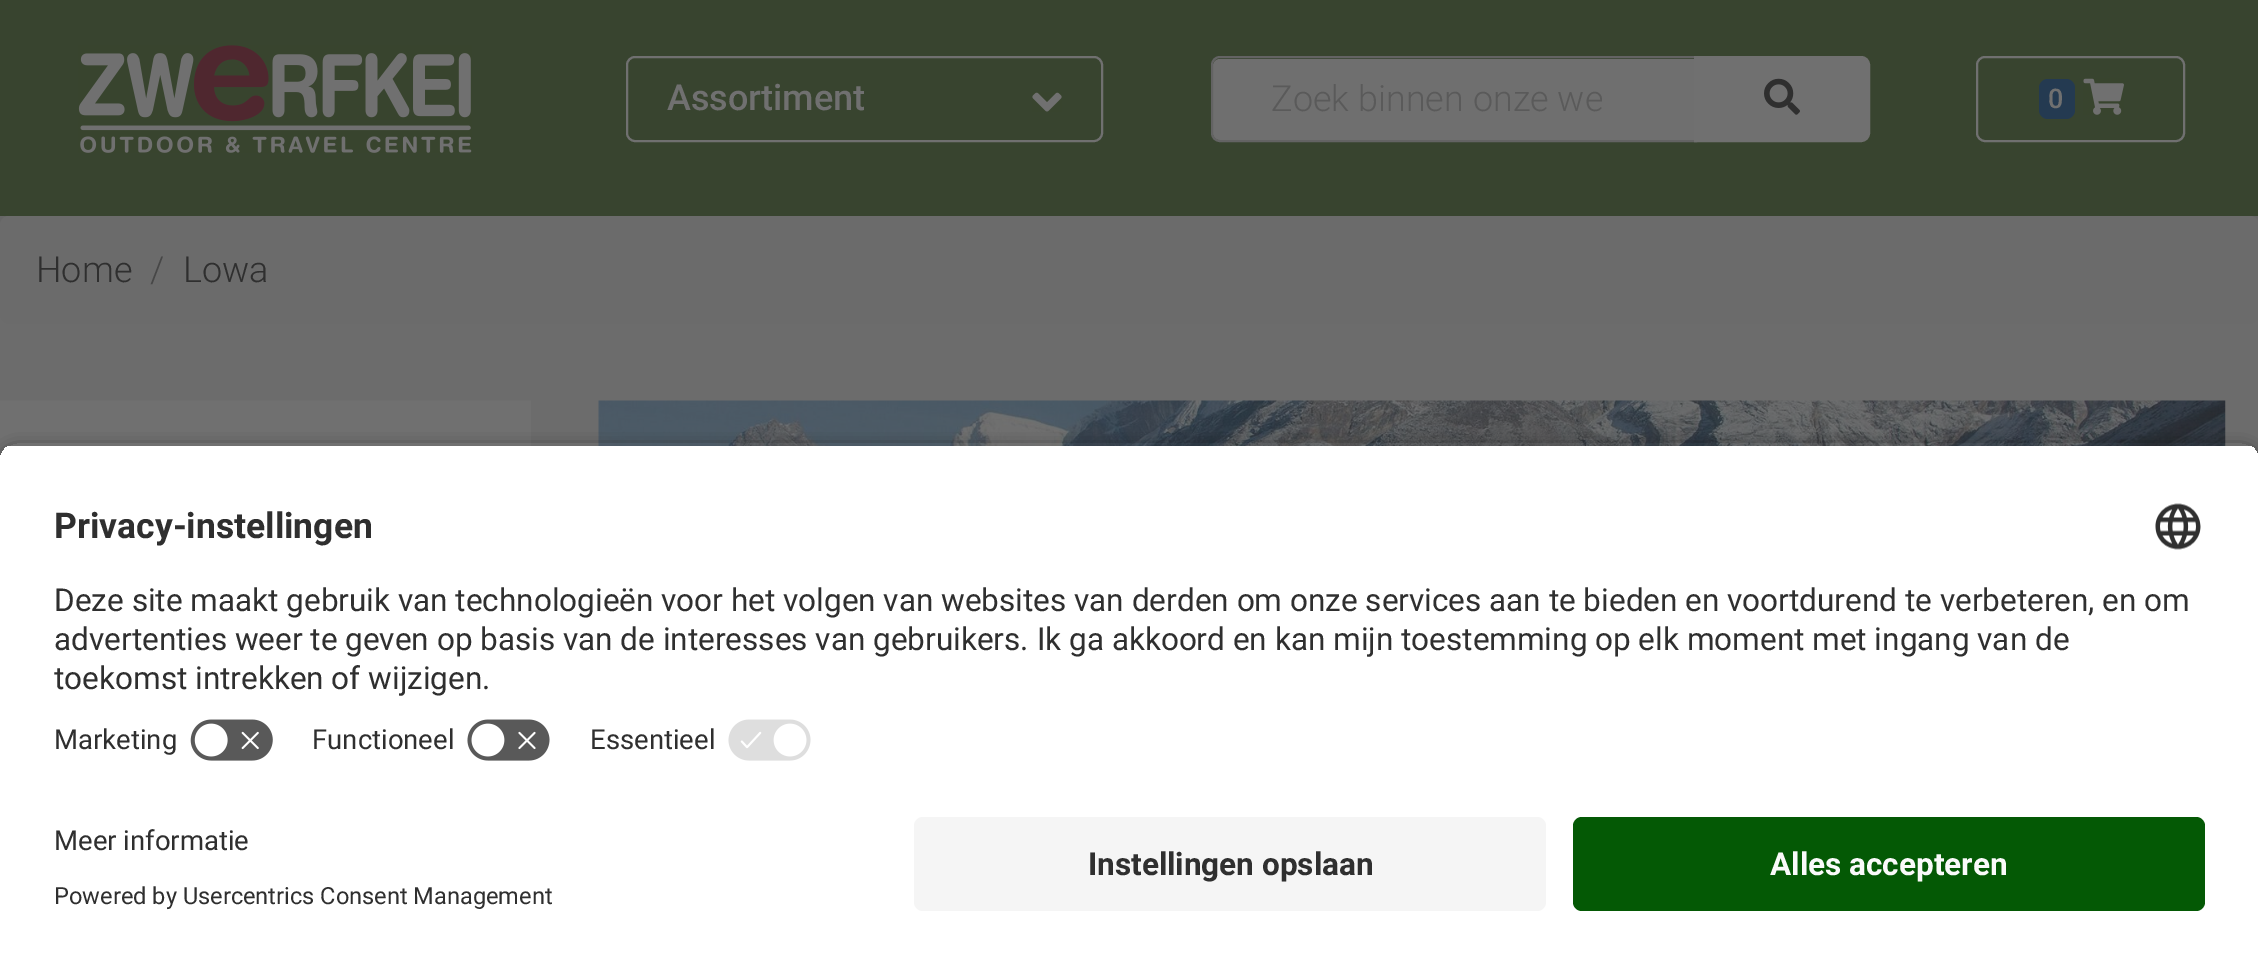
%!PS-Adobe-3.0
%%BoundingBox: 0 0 2258 964
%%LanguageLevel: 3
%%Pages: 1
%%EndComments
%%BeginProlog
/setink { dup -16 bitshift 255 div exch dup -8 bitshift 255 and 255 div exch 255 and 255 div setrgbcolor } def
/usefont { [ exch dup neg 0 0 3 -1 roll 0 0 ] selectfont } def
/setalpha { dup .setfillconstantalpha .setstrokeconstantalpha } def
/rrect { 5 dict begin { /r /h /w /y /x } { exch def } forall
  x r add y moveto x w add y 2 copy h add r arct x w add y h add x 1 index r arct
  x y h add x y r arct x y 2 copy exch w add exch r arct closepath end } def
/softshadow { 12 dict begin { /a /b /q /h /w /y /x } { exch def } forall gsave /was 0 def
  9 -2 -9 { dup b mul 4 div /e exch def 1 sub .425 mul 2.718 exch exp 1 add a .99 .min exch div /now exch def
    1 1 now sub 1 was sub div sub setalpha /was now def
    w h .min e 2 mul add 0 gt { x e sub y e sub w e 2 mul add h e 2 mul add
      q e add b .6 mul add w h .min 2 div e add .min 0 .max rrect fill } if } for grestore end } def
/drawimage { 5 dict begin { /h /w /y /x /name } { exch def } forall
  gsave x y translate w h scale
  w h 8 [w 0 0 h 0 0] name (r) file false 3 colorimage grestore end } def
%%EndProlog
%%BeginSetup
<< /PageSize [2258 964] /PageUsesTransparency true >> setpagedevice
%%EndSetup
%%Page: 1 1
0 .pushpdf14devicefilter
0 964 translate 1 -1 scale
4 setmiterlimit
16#6C6C6C setink
0 0 2258 964 rectfill
16#242424 setink
0 18 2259 216 0 18 0.15 softshadow
16#38442F setink
0 0 2258 216 rectfill
(img1.raw) 78 45 394 108 drawimage
16#707070 setink
2 setlinewidth
627 57 475 84 8 rrect stroke
/Roboto-Medium 36 usefont
667 110 moveto (Assortiment) show
(img2.raw) 1032 92 30 20 drawimage
16#6F6F6F setink
1220 59 moveto 1694 59 lineto 1694 140 lineto 1220 140 lineto 1216 140 1213 137 1213 133 curveto 1213 66 lineto 1213 62 1216 59 1220 59 curveto closepath fill
16#636363 setink
1220 57 moveto 1696 57 lineto 1696 141 lineto 1220 141 lineto 1215.5 141 1212 137.5 1212 133 curveto 1212 65 lineto 1212 60.5 1215.5 57 1220 57 curveto closepath stroke
gsave
1271 77 331 42 rectclip
/Roboto-Light 36 usefont
16#5A5A5A setink
1271 111 moveto (Zoek binnen onze we) show
grestore
16#707070 setink
1695 57 moveto 1861 57 lineto 1865.5 57 1869 60.5 1869 65 curveto 1869 133 lineto 1869 137.5 1865.5 141 1861 141 curveto 1695 141 lineto closepath gsave fill grestore
stroke
(img3.raw) 1764 78 36 37 drawimage
1977 57 207 84 8 rrect stroke
16#243A51 setink
2039 79 36 40 9 rrect fill
/Roboto-Medium 27 usefont
16#707070 setink
2048 108 moveto (0) show
(img4.raw) 2083 78 41 37 drawimage
16#6B6B6B setink
0 216 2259 108 9 rrect fill
/Roboto-Light 36 usefont
16#2F2F2F setink
36 282 moveto (Home) show
16#474747 setink
150 282 moveto (/) show
16#2F2F2F setink
183 282 moveto (Lowa) show
(img5.raw) 0 400 531 61 drawimage
(img6.raw) 598 400 1628 46 drawimage
gsave
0 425 moveto 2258 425 lineto 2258 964 lineto 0 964 lineto closepath 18 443 moveto 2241 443 lineto 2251 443 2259 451 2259 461 curveto 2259 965 lineto 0 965 lineto 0 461 lineto 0 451 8 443 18 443 curveto closepath eoclip newpath
16#000000 setink
0 450 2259 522 18 8 0.8 softshadow
grestore
gsave
18 443 moveto 2241 443 lineto 2251 443 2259 451 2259 461 curveto 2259 799 lineto 0 799 lineto 0 461 lineto 0 451 8 443 18 443 curveto closepath clip newpath
16#FFFFFF setink
0 446 2258 353 rectfill
0 446 2258 263 rectfill
grestore
/Roboto-Bold 35.5 usefont
54 538 moveto (Privacy-instellingen) show
(img7.raw) 2155 503 46 47 drawimage
/Roboto-Regular 31.5 usefont
[
    [(Deze site maakt gebruik van technologieën voor het volgen van websites van derden om onze services aan te bieden en voortdurend te verbeteren, en om) 54 611]
    [(advertenties weer te geven op basis van de interesses van gebruikers. Ik ga akkoord en kan mijn toestemming op elk moment met ingang van de) 54 650]
    [(toekomst intrekken of wijzigen.) 54 689]
] { aload pop moveto show } forall
/Roboto-Regular 27.5 usefont
54 749 moveto (Marketing) show
(img8.raw) 190 719 83 42 drawimage
312 749 moveto (Functioneel) show
(img9.raw) 467 719 83 42 drawimage
590 749 moveto (Essentieel) show
(img10.raw) 728 719 83 42 drawimage
16#FFFFFF setink
0 799 2258 165 rectfill
16#2F2F2F setink
54 850 moveto (Meer informatie) show
/Roboto-Regular 23.6 usefont
54 904 moveto (Powered by Usercentrics Consent Management) show
16#F5F5F5 setink
914 817 632 94 9 rrect fill
/Roboto-Bold 31.5 usefont
16#2F2F2F setink
1088 875 moveto (Instellingen opslaan) show
16#045905 setink
1573 817 632 94 9 rrect fill
16#FAFAFA setink
1770 875 moveto (Alles accepteren) show
.poppdf14devicefilter showpage
%%EOF
